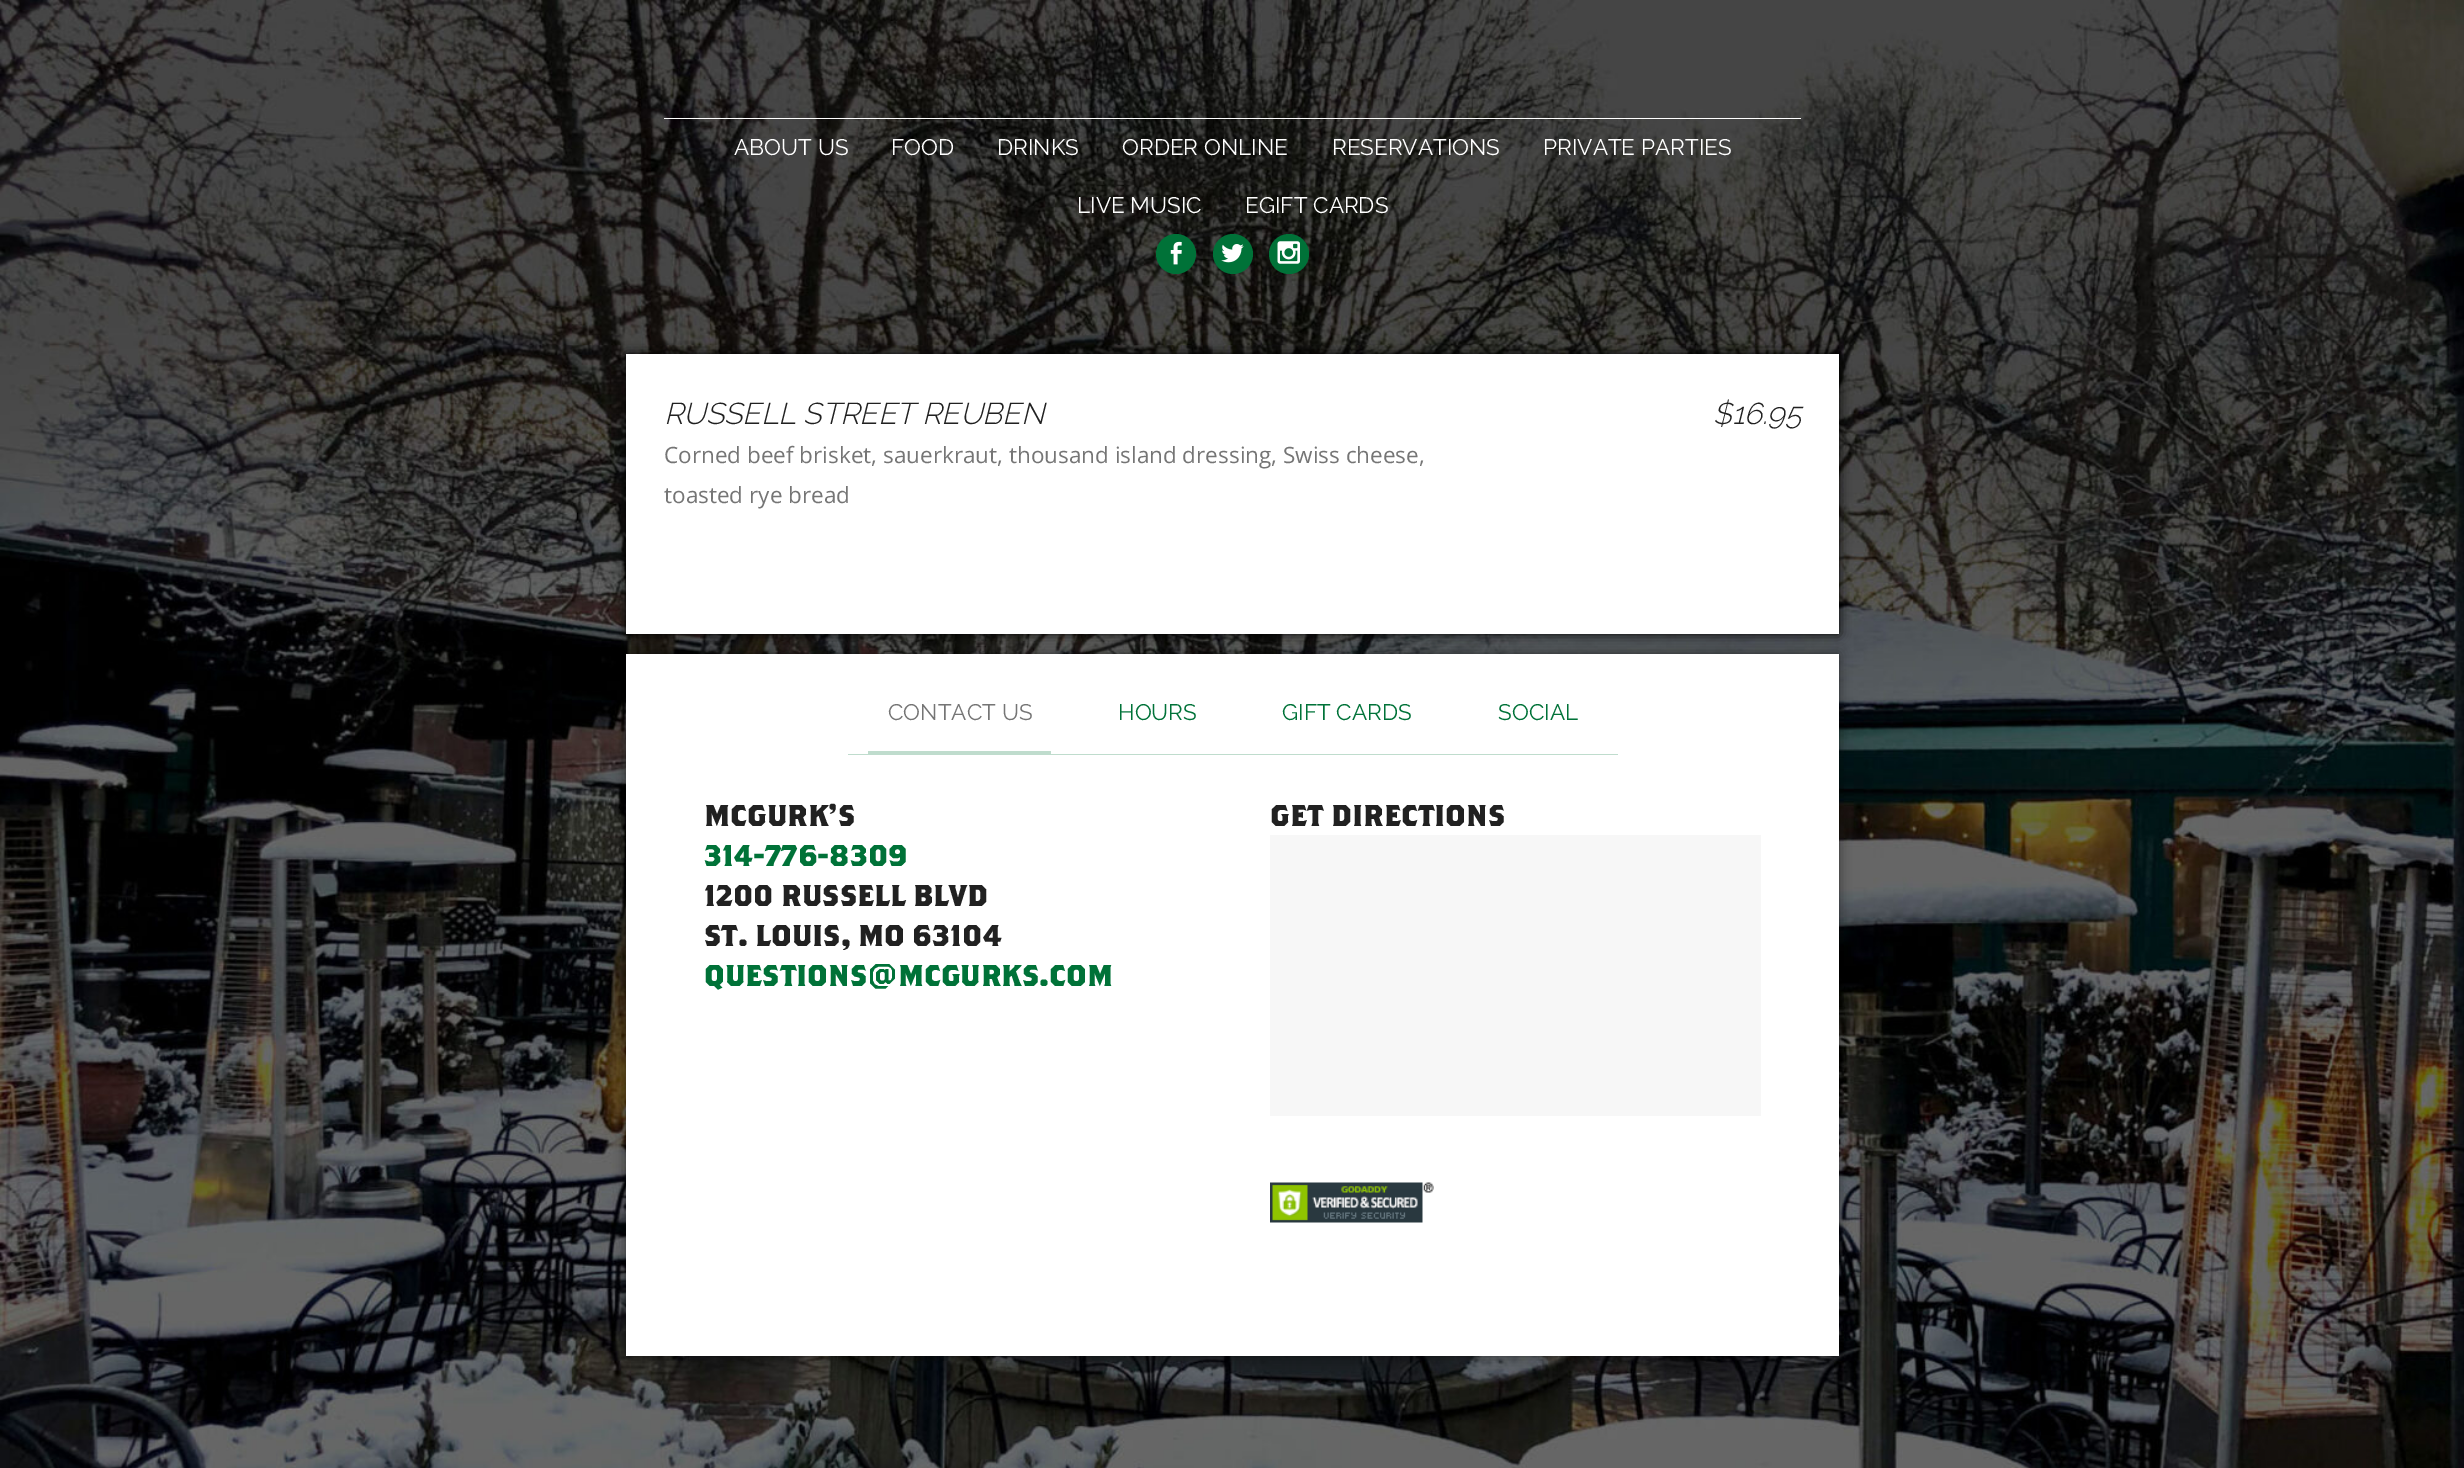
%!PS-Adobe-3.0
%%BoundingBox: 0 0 2464 1468
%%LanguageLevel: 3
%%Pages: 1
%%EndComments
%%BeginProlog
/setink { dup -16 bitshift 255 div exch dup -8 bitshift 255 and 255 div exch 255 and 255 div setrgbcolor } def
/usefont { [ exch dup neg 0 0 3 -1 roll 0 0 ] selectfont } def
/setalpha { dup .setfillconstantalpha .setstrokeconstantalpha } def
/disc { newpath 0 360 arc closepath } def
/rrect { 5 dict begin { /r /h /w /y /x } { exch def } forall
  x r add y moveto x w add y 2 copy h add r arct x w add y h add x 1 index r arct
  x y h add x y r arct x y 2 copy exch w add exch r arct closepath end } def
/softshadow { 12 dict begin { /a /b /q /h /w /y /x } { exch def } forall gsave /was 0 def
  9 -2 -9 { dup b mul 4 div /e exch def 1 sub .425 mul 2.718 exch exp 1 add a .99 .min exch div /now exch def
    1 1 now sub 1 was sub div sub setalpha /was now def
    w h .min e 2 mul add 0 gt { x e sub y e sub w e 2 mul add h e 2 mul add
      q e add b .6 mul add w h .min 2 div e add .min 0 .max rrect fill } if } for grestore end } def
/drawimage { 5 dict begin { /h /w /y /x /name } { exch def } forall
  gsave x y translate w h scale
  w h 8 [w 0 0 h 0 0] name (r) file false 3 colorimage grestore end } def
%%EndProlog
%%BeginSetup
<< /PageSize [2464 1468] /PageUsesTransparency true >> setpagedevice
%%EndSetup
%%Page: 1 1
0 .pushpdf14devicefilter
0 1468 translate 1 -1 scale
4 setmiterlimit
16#FFFFFF setink
0 0 2464 1468 rectfill
(img1.raw) 0 0 2464 1468 drawimage
664 118 1137 1 rectfill
/Raleway-Regular 22.5 usefont
[
    [(ABOUT US) 734 155]
    [(FOOD) 891 155]
    [(DRINKS) 997 155]
    [(ORDER ONLINE) 1122 155]
    [(RESERVATIONS) 1332 155]
    [(PRIVATE PARTIES) 1543 155]
    [(LIVE MUSIC) 1077 213]
    [(EGIFT CARDS) 1245 213]
] { aload pop moveto show } forall
16#007238 setink
1176 254 20 disc fill
(img2.raw) 1170 241 12 24 drawimage
1233 254 20 disc fill
(img3.raw) 1221 244 23 19 drawimage
1289 254 20 disc fill
(img4.raw) 1277 241 23 23 drawimage
16#000000 setink
626 354 1213 280 0 6 1 softshadow
16#FFFFFF setink
626 354 1213 280 rectfill
/Raleway-LightItalic 30 usefont
16#212121 setink
664 424 moveto (RUSSELL STREET REUBEN) show
1713 424 moveto ($16.95) show
/OpenSans-Regular 22.5 usefont
16#757575 setink
664 463 moveto (Corned beef brisket, sauerkraut, thousand island dressing, Swiss cheese,) show
664 503 moveto (toasted rye bread) show
16#000000 setink
626 654 1213 702 0 6 0.5 softshadow
[
    [626 654 1213 702 16#FFFFFF]
    [848 754 770 1 16#BFDCCD]
    [868 751 183 3 16#BFDCCD]
] { aload pop setink rectfill } forall
/Raleway-Regular 22.5 usefont
16#757575 setink
888 720 moveto (CONTACT US) show
16#007238 setink
[
    [(HOURS) 1118 720]
    [(GIFT CARDS) 1282 720]
    [(SOCIAL) 1498 720]
] { aload pop moveto show } forall
/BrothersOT-Bold 30 usefont
16#212121 setink
704 826 moveto (MCGURK’S) show
16#007238 setink
704 866 moveto (314-776-8309) show
16#212121 setink
704 906 moveto (1200 RUSSELL BLVD) show
704 946 moveto (ST. LOUIS, MO 63104) show
16#007238 setink
704 986 moveto (QUESTIONS@MCGURKS.COM) show
16#212121 setink
1270 826 moveto (GET DIRECTIONS) show
16#F7F7F7 setink
1270 835 491 281 rectfill
(img5.raw) 1270 1182 164 41 drawimage
.poppdf14devicefilter showpage
%%EOF
